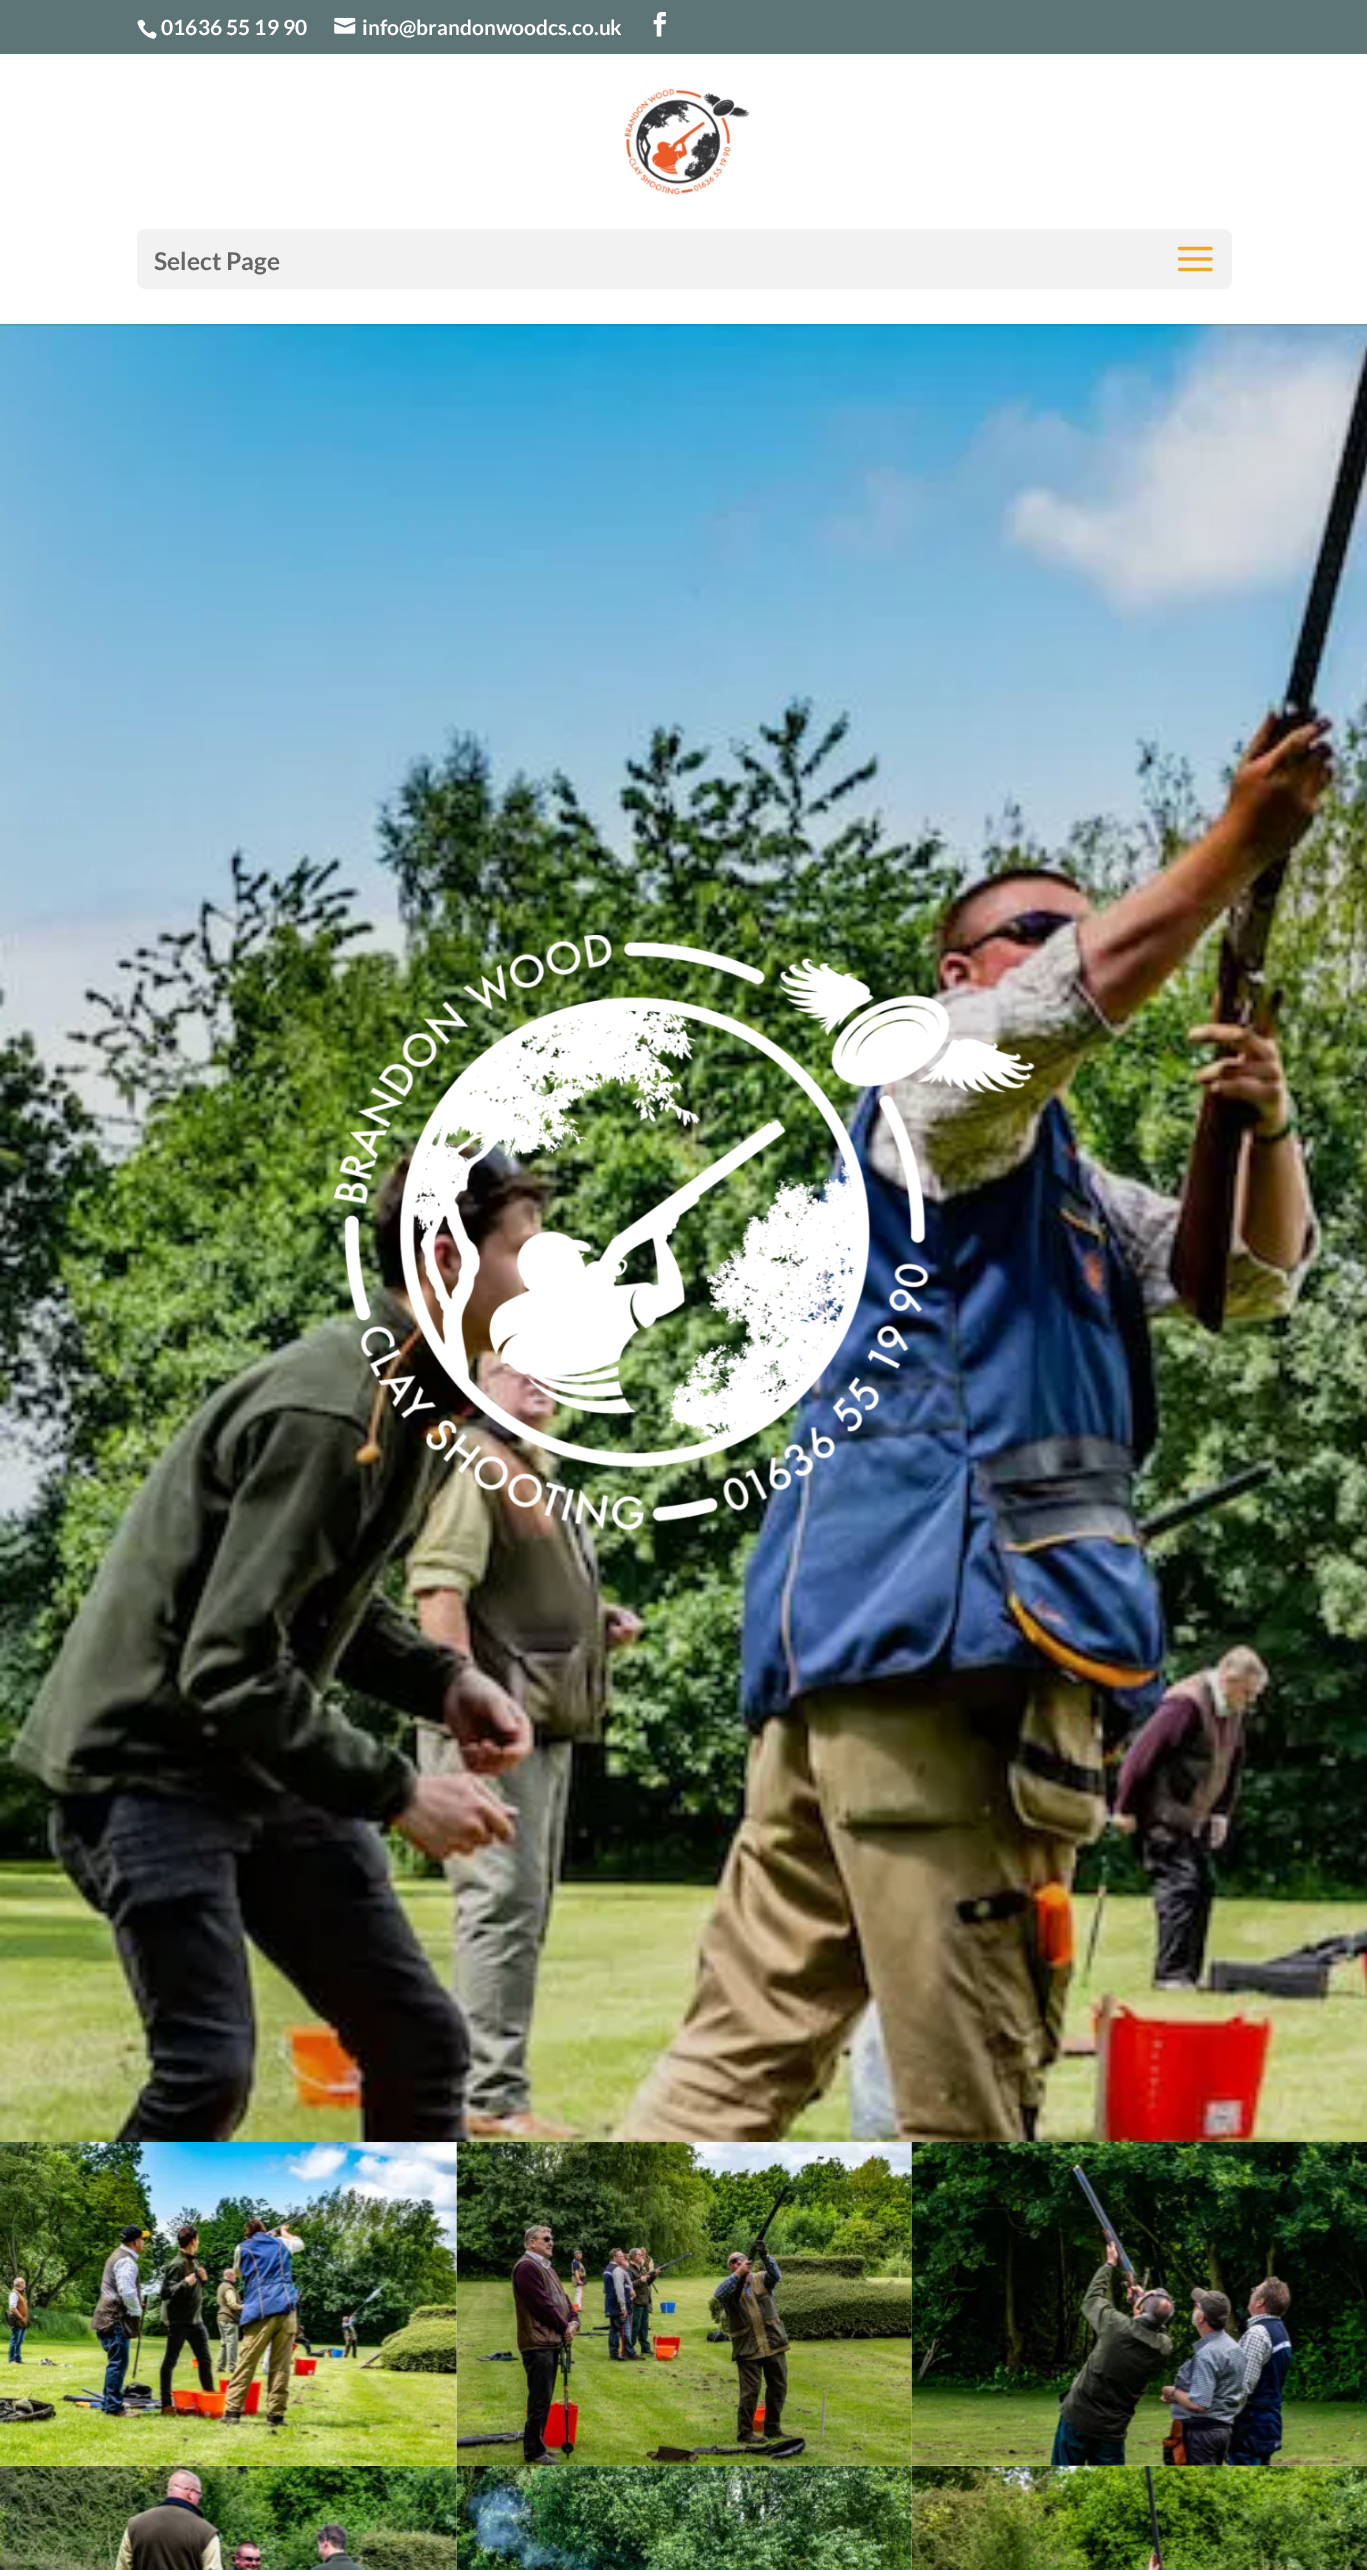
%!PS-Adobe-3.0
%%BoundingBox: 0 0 1367 2570
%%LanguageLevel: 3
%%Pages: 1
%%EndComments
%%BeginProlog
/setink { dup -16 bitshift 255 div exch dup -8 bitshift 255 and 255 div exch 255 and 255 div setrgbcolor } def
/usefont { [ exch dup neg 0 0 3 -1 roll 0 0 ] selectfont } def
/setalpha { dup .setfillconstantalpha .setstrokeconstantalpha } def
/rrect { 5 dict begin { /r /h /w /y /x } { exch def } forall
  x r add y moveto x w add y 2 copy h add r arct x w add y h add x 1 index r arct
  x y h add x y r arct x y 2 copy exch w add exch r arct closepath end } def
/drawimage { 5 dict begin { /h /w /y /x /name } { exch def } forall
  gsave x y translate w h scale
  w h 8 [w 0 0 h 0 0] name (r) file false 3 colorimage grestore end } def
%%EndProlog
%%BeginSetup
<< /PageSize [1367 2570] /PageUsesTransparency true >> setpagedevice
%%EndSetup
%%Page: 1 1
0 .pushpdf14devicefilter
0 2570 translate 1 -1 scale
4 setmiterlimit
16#FFFFFF setink
0 0 1367 2570 rectfill
16#5E7578 setink
0 0 1367 54 rectfill
(img1.raw) 137 19 20 20 drawimage
/Lato-Bold 21 usefont
16#FFFFFF setink
161 35 moveto (01636 55 19 90) show
(img2.raw) 334 17 22 17 drawimage
362 35 moveto (info@brandonwoodcs.co.uk) show
(img3.raw) 653 12 13 25 drawimage
(img6.raw) 0 324 1367 1818 drawimage
0.1 setalpha
16#000000 setink
0 324 moveto 0 326 lineto 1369 326 lineto 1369 56 lineto 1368 56 lineto 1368 324 lineto closepath fill
1 setalpha
(img4.raw) 624 89 126 106 drawimage
16#F2F2F2 setink
137 229 1095 60 9 rrect fill
/Lato-Bold 24.5 usefont
16#666666 setink
154 270 moveto (Select Page) show
(img5.raw) 1177 246 36 26 drawimage
(img7.raw) 334 935 701 595 drawimage
(img8.raw) 0 2142 457 324 drawimage
(img9.raw) 456 2142 456 324 drawimage
(img10.raw) 911 2142 456 324 drawimage
(img11.raw) 0 2466 457 104 drawimage
(img12.raw) 456 2465 456 105 drawimage
(img13.raw) 912 2466 455 104 drawimage
.poppdf14devicefilter showpage
%%EOF
